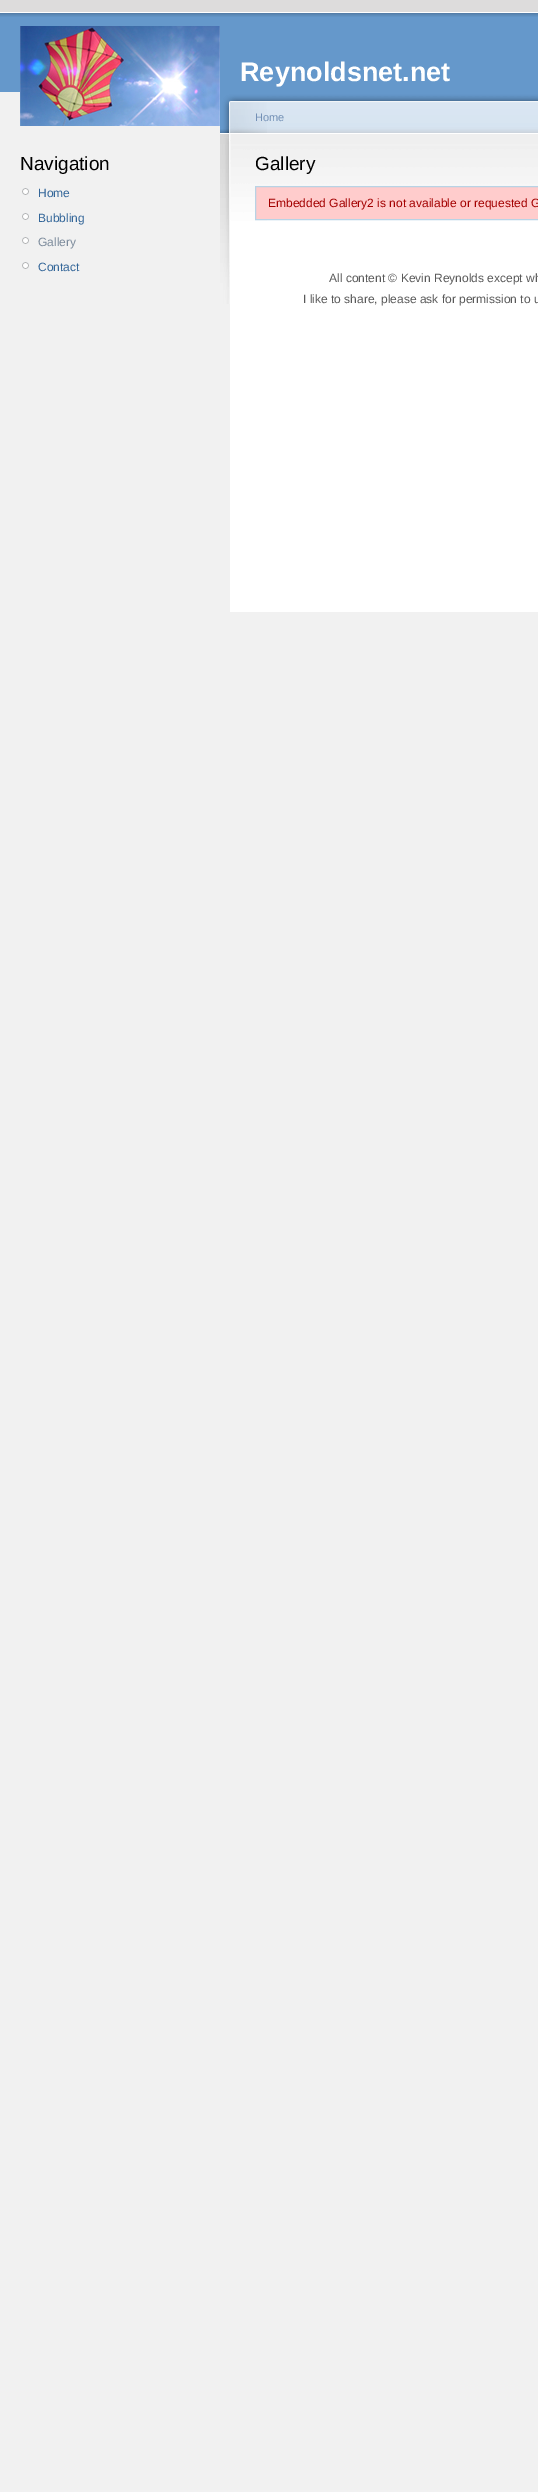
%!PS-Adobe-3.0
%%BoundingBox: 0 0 538 2492
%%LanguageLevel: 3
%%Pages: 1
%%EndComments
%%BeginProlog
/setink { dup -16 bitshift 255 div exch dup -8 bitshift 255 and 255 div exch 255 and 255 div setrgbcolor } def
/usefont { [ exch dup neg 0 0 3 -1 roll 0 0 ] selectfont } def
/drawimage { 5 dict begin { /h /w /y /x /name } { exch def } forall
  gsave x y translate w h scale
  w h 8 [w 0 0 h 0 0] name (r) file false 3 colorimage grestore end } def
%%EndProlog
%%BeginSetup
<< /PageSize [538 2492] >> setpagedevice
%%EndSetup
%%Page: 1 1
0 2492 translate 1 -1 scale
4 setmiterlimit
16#F1F1F1 setink
0 0 538 2492 rectfill
16#DDDCDC setink
0 0 538 12 rectfill
(img1.raw) 0 12 538 80 drawimage
(img2.raw) 20 26 200 100 drawimage
/LiberationSans-Bold 27 usefont
16#FFFFFF setink
240 81 moveto (Reynoldsnet.net) show
/LiberationSans-Regular 19 usefont
16#000000 setink
20 170 moveto (Navigation) show
(img3.raw) 22 188 7 7 drawimage
/LiberationSans-Regular 12 usefont
16#336699 setink
38 197 moveto (Home) show
(img3.raw) 22 213 7 7 drawimage
38 222 moveto (Bubbling) show
(img3.raw) 22 237 7 7 drawimage
16#7C8B9C setink
38 246 moveto (Gallery) show
(img3.raw) 22 262 7 7 drawimage
16#336699 setink
38 271 moveto (Contact) show
16#FFFFFF setink
230 220 308 392 rectfill
(img4.raw) 267 92 271 94 drawimage
(img5.raw) 220 92 47 212 drawimage
/LiberationSans-Regular 11 usefont
16#7390B6 setink
255 121 moveto (Home) show
/LiberationSans-Regular 19 usefont
16#000000 setink
255 170 moveto (Gallery) show
16#FFCCCC setink
255.5 186.5 moveto 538.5 186.5 lineto 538.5 219.5 lineto 255.5 219.5 lineto closepath gsave fill grestore
16#B8D3E5 setink
stroke
/LiberationSans-Regular 12 usefont
16#A30000 setink
268 207 moveto (Embedded Gallery2 is not available or requested G) show
16#595959 setink
329 282 moveto (All content © Kevin Reynolds except wh) show
303 303 moveto (I like to share, please ask for permission to u) show
showpage
%%EOF
